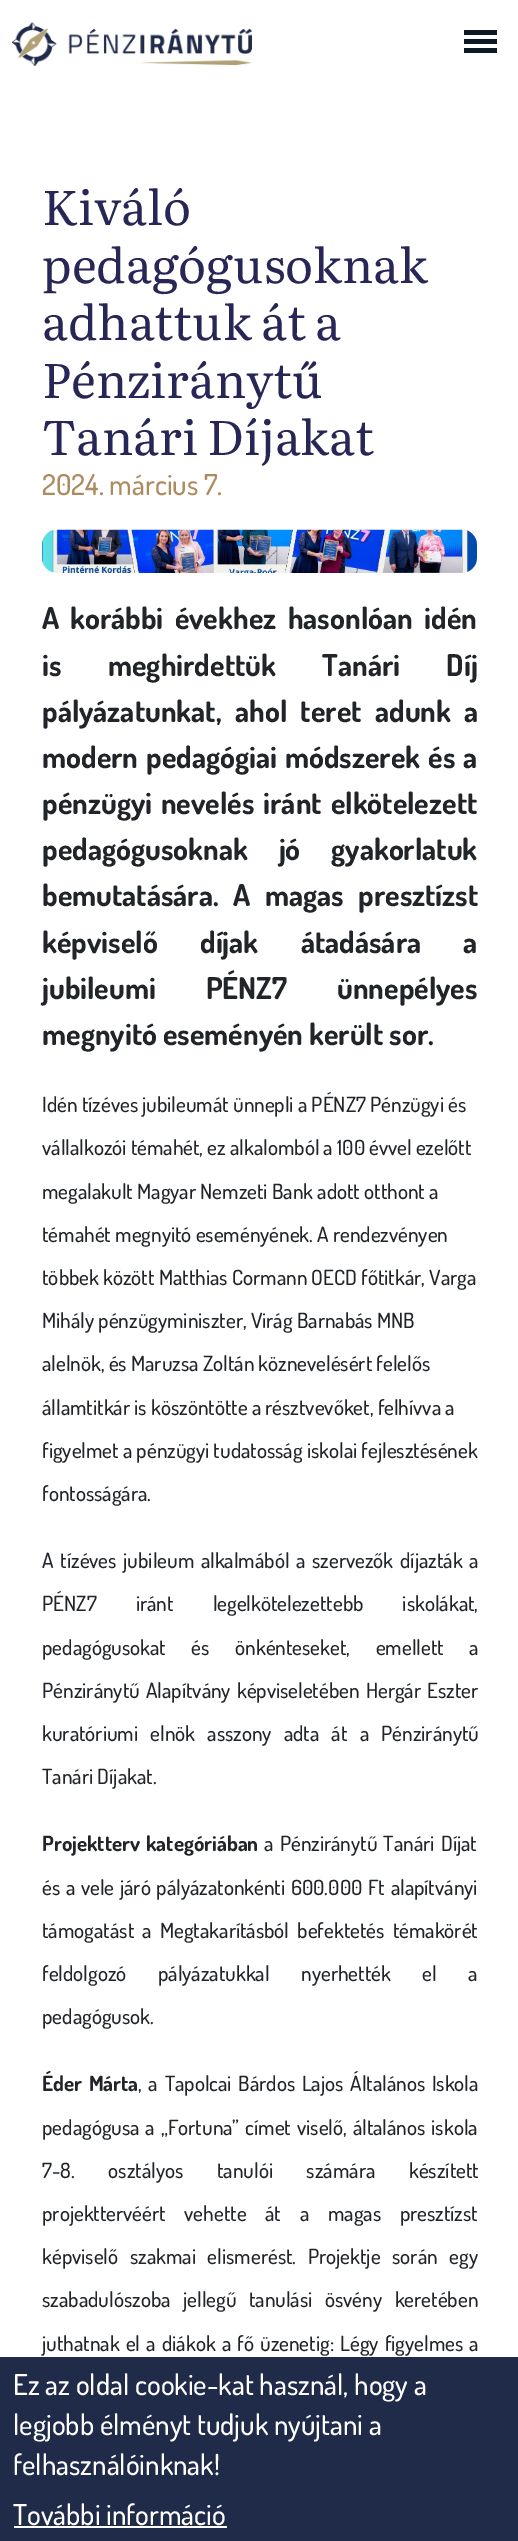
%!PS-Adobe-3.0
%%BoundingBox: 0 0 518 2541
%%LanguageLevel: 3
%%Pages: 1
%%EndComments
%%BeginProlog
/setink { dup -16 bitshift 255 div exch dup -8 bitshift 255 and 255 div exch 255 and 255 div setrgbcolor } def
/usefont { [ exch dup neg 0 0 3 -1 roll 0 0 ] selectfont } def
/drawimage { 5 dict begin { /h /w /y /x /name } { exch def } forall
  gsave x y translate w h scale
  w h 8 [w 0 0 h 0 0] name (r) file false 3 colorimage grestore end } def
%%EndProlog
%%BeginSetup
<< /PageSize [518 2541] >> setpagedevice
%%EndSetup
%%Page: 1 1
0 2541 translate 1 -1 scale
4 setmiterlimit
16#FFFFFF setink
0 0 518 2541 rectfill
[
    [464 30 33 5 16#0C1923]
    [464 39 33 5 16#0C1923]
    [464 48 33 5 16#0C1923]
] { aload pop setink rectfill } forall
(img1.raw) 12 22 240 44 drawimage
/Literata-Regular 48 usefont
16#272656 setink
[
    [(Kiváló) 42 225]
    [(pedagógusoknak) 42 283]
    [(adhattuk át a) 42 340]
    [(Pénzirányt) 42 398]
] { aload pop moveto show } forall
/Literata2-Regular 48 usefont
292 398 moveto (ű) show
/Literata-Regular 48 usefont
42 455 moveto (Tanári Díjakat) show
/Dosis-Medium 28.75 usefont
16#AD8B60 setink
42 495 moveto (2024. március 7.) show
(img2.raw) 42 529 435 44 drawimage
/Dosis-Bold 30 usefont
16#212529 setink
42 629 moveto (A) show
70 629 moveto 5.5 0 32 (korábbi évekhez hasonlóan idén) widthshow
42 676 moveto 40.5 0 32 (is meghirdettük Tanári Díj) widthshow
42 722 moveto 7.5 0 32 (pályázatunkat, ahol teret adunk a) widthshow
42 768 moveto 2 0 32 (modern pedagógiai módszerek és a) widthshow
42 814 moveto 3 0 32 (pénzügyi nevelés iránt elkötelezett) widthshow
42 860 moveto 25 0 32 (pedagógusoknak jó gyakorlatuk) widthshow
42 906 moveto 8.5 0 32 (bemutatására. A magas presztízst) widthshow
42 953 moveto 36.5 0 32 (képviselő díjak átadására a) widthshow
42 999 moveto 44 0 32 (jubileumi PÉNZ7 ünnepélyes) widthshow
42 1045 moveto (megnyitó eseményén került sor.) show
/Dosis-Medium 21 usefont
[
    [(Idén tízéves jubileumát ünnepli a PÉNZ7 Pénzügyi és) 42 1112]
    [(vállalkozói témahét, ez alkalomból a 100 évvel ezelőtt) 42 1155]
    [(megalakult Magyar Nemzeti Bank adott otthont a) 42 1199]
    [(témahét megnyitó eseményének. A rendezvényen) 42 1242]
    [(többek között Matthias Cormann OECD főtitkár, Varga) 42 1285]
    [(Mihály pénzügyminiszter, Virág Barnabás MNB) 42 1328]
    [(alelnök, és Maruzsa Zoltán köznevelésért felelős) 42 1371]
    [(államtitkár is köszöntötte a résztvevőket, felhívva a) 42 1415]
    [(figyelmet a pénzügyi tudatosság iskolai fejlesztésének) 42 1458]
    [(fontosságára.) 42 1501]
] { aload pop moveto show } forall
42 1568 moveto 2.5 0 32 (A tízéves jubileum alkalmából a szervezők díjazták a) widthshow
42 1611 moveto 35 0 32 (PÉNZ7 iránt legelkötelezettebb iskolákat,) widthshow
42 1655 moveto 21.5 0 32 (pedagógusokat és önkénteseket, emellett a) widthshow
42 1698 moveto 2 0 32 (Pénziránytű Alapítvány képviseletében Hergár Eszter) widthshow
42 1741 moveto 8 0 32 (kuratóriumi elnök asszony adta át a Pénziránytű) widthshow
42 1784 moveto (Tanári Díjakat.) show
/Dosis-Bold 21 usefont
42 1851 moveto 2 0 32 (Projektterv kategóriában) widthshow
/Dosis-Medium 21 usefont
264 1851 moveto 2 0 32 (a Pénziránytű Tanári Díjat) widthshow
42 1895 moveto 1.5 0 32 (és a vele járó pályázatonkénti 600.000 Ft alapítványi) widthshow
42 1938 moveto 4 0 32 (támogatást a Megtakarításból befektetés témakörét) widthshow
42 1981 moveto 27.5 0 32 (feldolgozó pályázatukkal nyerhették el a) widthshow
42 2024 moveto (pedagógusok.) show
/Dosis-Bold 21 usefont
42 2091 moveto 2.5 0 32 (Éder Márta) widthshow
/Dosis-Medium 21 usefont
138 2091 moveto 2.5 0 32 (, a Tapolcai Bárdos Lajos Általános Iskola) widthshow
42 2135 moveto 1.75 0 32 (pedagógusa a „Fortuna” címet viselő, általános iskola) widthshow
42 2178 moveto 29.5 0 32 (7-8. osztályos tanulói számára készített) widthshow
42 2221 moveto 14.5 0 32 (projekttervéért vehette át a magas presztízst) widthshow
42 2264 moveto 7.5 0 32 (képviselő szakmai elismerést. Projektje során egy) widthshow
42 2307 moveto 8.5 0 32 (szabadulószoba jellegű tanulási ösvény keretében) widthshow
42 2351 moveto 2 0 32 (juthatnak el a diákok a fő üzenetig: Légy figyelmes a) widthshow
16#202B4A setink
0 2357 518 184 rectfill
/Dosis-Medium 28.75 usefont
16#FFFFFF setink
[
    [(Ez az oldal cookie-kat használ, hogy a) 13 2395]
    [(legjobb élményt tudjuk nyújtani a) 13 2435]
    [(felhasználóinknak!) 13 2475]
    [(További információ) 13 2525]
] { aload pop moveto show } forall
14 2526 213 2 rectfill
showpage
%%EOF
